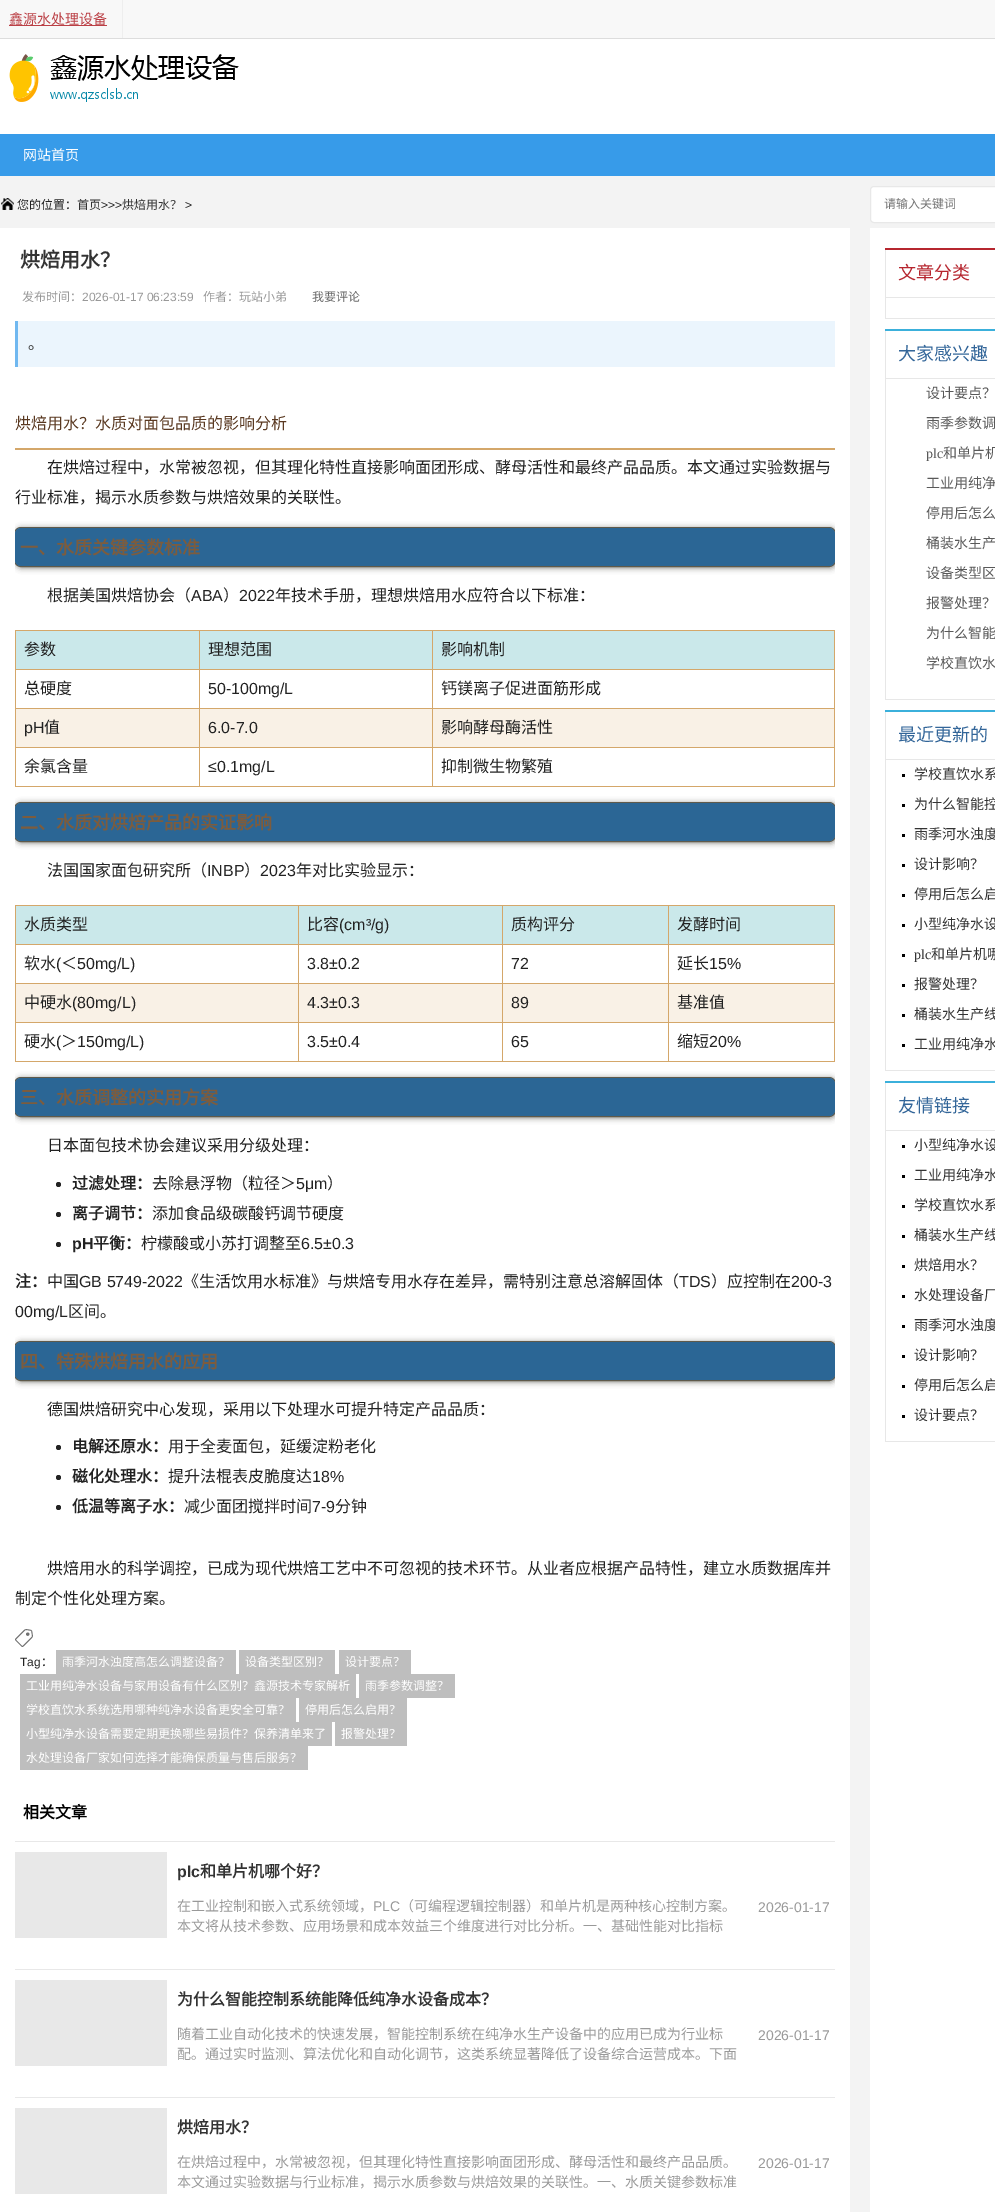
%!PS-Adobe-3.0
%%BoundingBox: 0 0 995 2212
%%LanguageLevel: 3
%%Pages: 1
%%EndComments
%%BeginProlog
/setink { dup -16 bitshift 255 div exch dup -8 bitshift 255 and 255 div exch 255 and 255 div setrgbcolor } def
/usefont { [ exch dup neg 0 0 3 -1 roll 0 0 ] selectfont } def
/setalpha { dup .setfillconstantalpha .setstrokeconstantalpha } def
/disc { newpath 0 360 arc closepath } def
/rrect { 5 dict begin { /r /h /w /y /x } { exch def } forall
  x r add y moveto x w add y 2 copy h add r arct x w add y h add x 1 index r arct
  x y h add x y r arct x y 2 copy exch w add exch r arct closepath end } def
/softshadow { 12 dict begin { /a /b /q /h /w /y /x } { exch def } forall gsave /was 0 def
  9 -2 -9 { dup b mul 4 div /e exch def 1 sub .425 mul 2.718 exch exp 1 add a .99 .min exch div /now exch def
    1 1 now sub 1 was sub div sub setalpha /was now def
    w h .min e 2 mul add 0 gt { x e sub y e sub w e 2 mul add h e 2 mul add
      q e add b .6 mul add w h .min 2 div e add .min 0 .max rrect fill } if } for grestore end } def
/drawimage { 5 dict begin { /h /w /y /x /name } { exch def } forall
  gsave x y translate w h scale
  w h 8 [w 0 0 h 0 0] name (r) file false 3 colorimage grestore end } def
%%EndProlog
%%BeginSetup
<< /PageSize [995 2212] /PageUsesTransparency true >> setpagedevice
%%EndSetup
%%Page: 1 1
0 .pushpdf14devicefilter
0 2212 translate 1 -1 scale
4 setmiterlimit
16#FFFFFF setink
0 0 995 2212 rectfill
[
    [0 0 995 38 16#F8F8F8]
    [0 38 995 1 16#DDDDDD]
    [122 0 1 38 16#EEEEEE]
    [9 25 98 1 16#BB4046]
] { aload pop setink rectfill } forall
/NotoSansCJKSC-Regular 14 usefont
9 24 moveto (鑫源水处理设备) show
(img1.raw) 9 54 230 48 drawimage
16#379BE9 setink
0 134 995 42 rectfill
16#FFFFFF setink
23 160 moveto (网站首页) show
16#F3F3F3 setink
0 176 995 52 rectfill
(img2.raw) 1 198 13 12 drawimage
/NotoSansCJKSC-Regular 12 usefont
16#222222 setink
17 209 moveto (您的位置：) show
16#333333 setink
77 209 moveto (首页) show
/LiberationSans-Regular 12 usefont
16#222222 setink
101 209 moveto (>>>) show
/NotoSansCJKSC-Regular 12 usefont
16#333333 setink
122 209 moveto (烘焙用水？) show
/LiberationSans-Regular 12 usefont
16#222222 setink
185 209 moveto (>) show
16#FFFFFF setink
870.5 186.5 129 36 3.5 rrect gsave fill grestore
16#E8E8E8 setink
stroke
/NotoSansCJKSC-Regular 12 usefont
16#757575 setink
884 208 moveto (请输入关键词) show
16#F3F3F3 setink
850 228 20 1984 rectfill
/NotoSansCJKSC-Bold 20 usefont
16#333333 setink
20 267 moveto (烘焙用水？) show
/NotoSansCJKSC-Regular 12 usefont
16#999999 setink
22 301 moveto (发布时间：) show
/LiberationSans-Regular 12 usefont
82 301 moveto (2026-01-17 06:23:59) show
/NotoSansCJKSC-Regular 12 usefont
203 301 moveto (作者：玩站小弟) show
16#686868 setink
312 301 moveto (我要评论) show
16#EBF5FD setink
18 321 817 46 rectfill
16#70B8F0 setink
15 321 3 46 rectfill
/NotoSansCJKSC-Regular 16 usefont
16#333333 setink
28 349 moveto (。) show
16#D4A76A setink
15 448 820 2 rectfill
16#5A3921 setink
15 429 moveto (烘焙用水？水质对面包品质的影响分析) show
16#222222 setink
47 473 moveto (在烘焙过程中，水常被忽视，但其理化特性直接影响面团形成、酵母活性和最终产品品质。本文通过实验数据与) show
15 503 moveto (行业标准，揭示水质参数与烘焙效果的关联性。) show
gsave
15 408 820 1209 rectclip
16#0A0A00 setink
15 528 822 40 7 3 0.5 softshadow
grestore
gsave
15 408 820 1209 rectclip
16#5F5A4B setink
14.5 527.5 821 39 6.5 rrect stroke
grestore
16#2B6695 setink
15 528 820 38 6 rrect fill
/NotoSansCJKSC-Bold 18 usefont
16#7D5C3D setink
20 554 moveto (一、水质关键参数标准) show
/NotoSansCJKSC-Regular 16 usefont
16#222222 setink
47 601 moveto (根据美国烘焙协会（) show
/LiberationSans-Regular 16 usefont
191 601 moveto (ABA) show
/NotoSansCJKSC-Regular 16 usefont
223 601 moveto (）) show
/LiberationSans-Regular 16 usefont
239 601 moveto (2022) show
/NotoSansCJKSC-Regular 16 usefont
275 601 moveto (年技术手册，理想烘焙用水应符合以下标准：) show
[
    [16 631 183 38 16#CAE8EA]
    [432 630 403 1 16#D4A76A]
    [432 669 403 1 16#D4A76A]
    [432 708 403 1 16#D4A76A]
    [16 709 818 38 16#F9F1E6]
    [432 747 403 1 16#D4A76A]
    [834 747 1 40 16#D4A76A]
    [432 786 403 1 16#D4A76A]
    [432 747 1 40 16#D4A76A]
    [199 747 234 1 16#D4A76A]
    [432 708 1 40 16#D4A76A]
    [199 708 234 1 16#D4A76A]
    [432 669 1 40 16#D4A76A]
    [199 669 234 1 16#D4A76A]
    [432 630 1 40 16#D4A76A]
    [199 630 234 1 16#D4A76A]
    [199 786 234 1 16#D4A76A]
    [199 747 1 40 16#D4A76A]
    [15 747 185 1 16#D4A76A]
    [199 708 1 40 16#D4A76A]
    [15 708 185 1 16#D4A76A]
    [199 669 1 40 16#D4A76A]
    [15 669 185 1 16#D4A76A]
    [199 630 1 40 16#D4A76A]
    [15 630 185 1 16#D4A76A]
    [15 786 185 1 16#D4A76A]
    [15 747 1 40 16#D4A76A]
    [15 708 1 40 16#D4A76A]
    [15 669 1 40 16#D4A76A]
    [15 630 1 40 16#D4A76A]
] { aload pop setink rectfill } forall
16#222222 setink
24 655 moveto (参数) show
16#CAE8EA setink
200 631 232 38 rectfill
16#222222 setink
208 655 moveto (理想范围) show
[
    [433 631 401 38 16#CAE8EA]
    [834 708 1 40 16#D4A76A]
    [834 669 1 40 16#D4A76A]
    [834 630 1 40 16#D4A76A]
] { aload pop setink rectfill } forall
16#222222 setink
441 655 moveto (影响机制) show
24 694 moveto (总硬度) show
/LiberationSans-Regular 16 usefont
208 694 moveto (50-100mg/L) show
/NotoSansCJKSC-Regular 16 usefont
441 694 moveto (钙镁离子促进面筋形成) show
/LiberationSans-Regular 16 usefont
24 733 moveto (pH) show
/NotoSansCJKSC-Regular 16 usefont
44 733 moveto (值) show
/LiberationSans-Regular 16 usefont
208 733 moveto (6.0-7.0) show
/NotoSansCJKSC-Regular 16 usefont
441 733 moveto (影响酵母酶活性) show
24 772 moveto (余氯含量) show
/LiberationSans-Regular 16 usefont
208 772 moveto (≤0.1mg/L) show
/NotoSansCJKSC-Regular 16 usefont
441 772 moveto (抑制微生物繁殖) show
gsave
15 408 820 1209 rectclip
16#0A0A00 setink
15 803 822 40 7 3 0.5 softshadow
grestore
gsave
15 408 820 1209 rectclip
16#5F5A4B setink
14.5 802.5 821 39 6.5 rrect stroke
grestore
16#2B6695 setink
15 803 820 38 6 rrect fill
/NotoSansCJKSC-Bold 18 usefont
16#7D5C3D setink
20 829 moveto (二、水质对烘焙产品的实证影响) show
/NotoSansCJKSC-Regular 16 usefont
16#222222 setink
47 876 moveto (法国国家面包研究所（) show
/LiberationSans-Regular 16 usefont
207 876 moveto (INBP) show
/NotoSansCJKSC-Regular 16 usefont
244 876 moveto (）) show
/LiberationSans-Regular 16 usefont
260 876 moveto (2023) show
/NotoSansCJKSC-Regular 16 usefont
296 876 moveto (年对比实验显示：) show
[
    [16 906 282 38 16#CAE8EA]
    [668 905 167 1 16#D4A76A]
    [668 944 167 1 16#D4A76A]
    [668 983 167 1 16#D4A76A]
    [16 984 818 38 16#F9F1E6]
    [668 1022 167 1 16#D4A76A]
    [834 1022 1 40 16#D4A76A]
    [668 1061 167 1 16#D4A76A]
    [668 1022 1 40 16#D4A76A]
    [502 1022 167 1 16#D4A76A]
    [668 983 1 40 16#D4A76A]
    [502 983 167 1 16#D4A76A]
    [668 944 1 40 16#D4A76A]
    [502 944 167 1 16#D4A76A]
    [668 905 1 40 16#D4A76A]
    [502 905 167 1 16#D4A76A]
    [502 1061 167 1 16#D4A76A]
    [502 1022 1 40 16#D4A76A]
    [298 1022 205 1 16#D4A76A]
    [502 983 1 40 16#D4A76A]
    [298 983 205 1 16#D4A76A]
    [502 944 1 40 16#D4A76A]
    [298 944 205 1 16#D4A76A]
    [502 905 1 40 16#D4A76A]
    [298 905 205 1 16#D4A76A]
    [298 1061 205 1 16#D4A76A]
    [298 1022 1 40 16#D4A76A]
    [15 1022 284 1 16#D4A76A]
    [298 983 1 40 16#D4A76A]
    [15 983 284 1 16#D4A76A]
    [298 944 1 40 16#D4A76A]
    [15 944 284 1 16#D4A76A]
    [298 905 1 40 16#D4A76A]
    [15 905 284 1 16#D4A76A]
    [15 1061 284 1 16#D4A76A]
    [15 1022 1 40 16#D4A76A]
    [15 983 1 40 16#D4A76A]
    [15 944 1 40 16#D4A76A]
    [15 905 1 40 16#D4A76A]
] { aload pop setink rectfill } forall
16#222222 setink
24 930 moveto (水质类型) show
16#CAE8EA setink
299 906 203 38 rectfill
16#222222 setink
307 930 moveto (比容) show
/LiberationSans-Regular 16 usefont
339 930 moveto (\(cm³/g\)) show
16#CAE8EA setink
503 906 165 38 rectfill
/NotoSansCJKSC-Regular 16 usefont
16#222222 setink
511 930 moveto (质构评分) show
[
    [669 906 165 38 16#CAE8EA]
    [834 983 1 40 16#D4A76A]
    [834 944 1 40 16#D4A76A]
    [834 905 1 40 16#D4A76A]
] { aload pop setink rectfill } forall
16#222222 setink
677 930 moveto (发酵时间) show
24 969 moveto (软水) show
/LiberationSans-Regular 16 usefont
56 969 moveto (\() show
/NotoSansCJKSC-Regular 16 usefont
61 969 moveto (＜) show
/LiberationSans-Regular 16 usefont
[
    [(50mg/L\)) 77 969]
    [(3.8±0.2) 307 969]
    [(72) 511 969]
] { aload pop moveto show } forall
/NotoSansCJKSC-Regular 16 usefont
677 969 moveto (延长) show
/LiberationSans-Regular 16 usefont
709 969 moveto (15%) show
/NotoSansCJKSC-Regular 16 usefont
24 1008 moveto (中硬水) show
/LiberationSans-Regular 16 usefont
[
    [(\(80mg/L\)) 72 1008]
    [(4.3±0.3) 307 1008]
    [(89) 511 1008]
] { aload pop moveto show } forall
/NotoSansCJKSC-Regular 16 usefont
677 1008 moveto (基准值) show
24 1047 moveto (硬水) show
/LiberationSans-Regular 16 usefont
56 1047 moveto (\() show
/NotoSansCJKSC-Regular 16 usefont
61 1047 moveto (＞) show
/LiberationSans-Regular 16 usefont
[
    [(150mg/L\)) 77 1047]
    [(3.5±0.4) 307 1047]
    [(65) 511 1047]
] { aload pop moveto show } forall
/NotoSansCJKSC-Regular 16 usefont
677 1047 moveto (缩短) show
/LiberationSans-Regular 16 usefont
709 1047 moveto (20%) show
gsave
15 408 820 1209 rectclip
16#0A0A00 setink
15 1078 822 40 7 3 0.5 softshadow
grestore
gsave
15 408 820 1209 rectclip
16#5F5A4B setink
14.5 1077.5 821 39 6.5 rrect stroke
grestore
16#2B6695 setink
15 1078 820 38 6 rrect fill
/NotoSansCJKSC-Bold 18 usefont
16#7D5C3D setink
20 1104 moveto (三、水质调整的实用方案) show
/NotoSansCJKSC-Regular 16 usefont
16#222222 setink
47 1151 moveto (日本面包技术协会建议采用分级处理：) show
58.5 1184.5 2.5 disc fill
/NotoSansCJKSC-Bold 16 usefont
72 1189 moveto (过滤处理：) show
/NotoSansCJKSC-Regular 16 usefont
152 1189 moveto (去除悬浮物（粒径＞) show
/LiberationSans-Regular 16 usefont
296 1189 moveto (5μm) show
/NotoSansCJKSC-Regular 16 usefont
327 1189 moveto (）) show
58.5 1214.5 2.5 disc fill
/NotoSansCJKSC-Bold 16 usefont
72 1219 moveto (离子调节：) show
/NotoSansCJKSC-Regular 16 usefont
152 1219 moveto (添加食品级碳酸钙调节硬度) show
58.5 1244.5 2.5 disc fill
/LiberationSans-Bold 16 usefont
72 1249 moveto (pH) show
/NotoSansCJKSC-Bold 16 usefont
93 1249 moveto (平衡：) show
/NotoSansCJKSC-Regular 16 usefont
141 1249 moveto (柠檬酸或小苏打调整至) show
/LiberationSans-Regular 16 usefont
301 1249 moveto (6.5±0.3) show
/NotoSansCJKSC-Bold 16 usefont
15 1287 moveto (注：) show
/NotoSansCJKSC-Regular 16 usefont
47 1287 moveto (中国) show
/LiberationSans-Regular 16 usefont
79 1287 moveto (GB 5749-2022) show
/NotoSansCJKSC-Regular 16 usefont
183 1287 moveto (《生活饮用水标准》与烘焙专用水存在差异，需特别注意总溶解固体（) show
/LiberationSans-Regular 16 usefont
679 1287 moveto (TDS) show
/NotoSansCJKSC-Regular 16 usefont
711 1287 moveto (）应控制在) show
/LiberationSans-Regular 16 usefont
791 1287 moveto (200-3) show
15 1317 moveto (00mg/L) show
/NotoSansCJKSC-Regular 16 usefont
68 1317 moveto (区间。) show
gsave
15 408 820 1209 rectclip
16#0A0A00 setink
15 1342 822 40 7 3 0.5 softshadow
grestore
gsave
15 408 820 1209 rectclip
16#5F5A4B setink
14.5 1341.5 821 39 6.5 rrect stroke
grestore
16#2B6695 setink
15 1342 820 38 6 rrect fill
/NotoSansCJKSC-Bold 18 usefont
16#7D5C3D setink
20 1368 moveto (四、特殊烘焙用水的应用) show
/NotoSansCJKSC-Regular 16 usefont
16#222222 setink
47 1415 moveto (德国烘焙研究中心发现，采用以下处理水可提升特定产品品质：) show
58.5 1447.5 2.5 disc fill
/NotoSansCJKSC-Bold 16 usefont
72 1452 moveto (电解还原水：) show
/NotoSansCJKSC-Regular 16 usefont
168 1452 moveto (用于全麦面包，延缓淀粉老化) show
58.5 1477.5 2.5 disc fill
/NotoSansCJKSC-Bold 16 usefont
72 1482 moveto (磁化处理水：) show
/NotoSansCJKSC-Regular 16 usefont
168 1482 moveto (提升法棍表皮脆度达) show
/LiberationSans-Regular 16 usefont
312 1482 moveto (18%) show
58.5 1507.5 2.5 disc fill
/NotoSansCJKSC-Bold 16 usefont
72 1512 moveto (低温等离子水：) show
/NotoSansCJKSC-Regular 16 usefont
184 1512 moveto (减少面团搅拌时间) show
/LiberationSans-Regular 16 usefont
312 1512 moveto (7-9) show
/NotoSansCJKSC-Regular 16 usefont
[
    [(分钟) 335 1512]
    [(烘焙用水的科学调控，已成为现代烘焙工艺中不可忽视的技术环节。从业者应根据产品特性，建立水质数据库并) 47 1574]
    [(制定个性化处理方案。) 15 1604]
] { aload pop moveto show } forall
(img3.raw) 15 1629 18 18 drawimage
/LiberationSans-Regular 12 usefont
20 1666 moveto (Tag) show
/NotoSansCJKSC-Regular 12 usefont
41 1666 moveto (：) show
16#BEBEBE setink
56 1650 180 24 rectfill
16#FFFFFF setink
62 1666 moveto (雨季河水浊度高怎么调整设备？) show
16#BEBEBE setink
239 1650 96 24 rectfill
16#FFFFFF setink
245 1666 moveto (设备类型区别？) show
16#BEBEBE setink
339 1650 72 24 rectfill
16#FFFFFF setink
345 1666 moveto (设计要点？) show
16#BEBEBE setink
20 1674 336 24 rectfill
16#FFFFFF setink
26 1690 moveto (工业用纯净水设备与家用设备有什么区别？鑫源技术专家解析) show
16#BEBEBE setink
359 1674 96 24 rectfill
16#FFFFFF setink
365 1690 moveto (雨季参数调整？) show
16#BEBEBE setink
20 1698 276 24 rectfill
16#FFFFFF setink
26 1714 moveto (学校直饮水系统选用哪种纯净水设备更安全可靠？) show
16#BEBEBE setink
299 1698 108 24 rectfill
16#FFFFFF setink
305 1714 moveto (停用后怎么启用？) show
16#BEBEBE setink
20 1722 312 24 rectfill
16#FFFFFF setink
26 1738 moveto (小型纯净水设备需要定期更换哪些易损件？保养清单来了) show
16#BEBEBE setink
335 1722 72 24 rectfill
16#FFFFFF setink
341 1738 moveto (报警处理？) show
16#BEBEBE setink
20 1746 288 24 rectfill
16#FFFFFF setink
26 1762 moveto (水处理设备厂家如何选择才能确保质量与售后服务？) show
/NotoSansCJKSC-Bold 16 usefont
16#000000 setink
23 1818 moveto (相关文章) show
16#E8E8E8 setink
15 1841 820 1 rectfill
15 1852 152 86 rectfill
/LiberationSans-Bold 16 usefont
16#333333 setink
177 1877 moveto (plc) show
/NotoSansCJKSC-Bold 16 usefont
200 1877 moveto (和单片机哪个好？) show
/NotoSansCJKSC-Regular 14 usefont
16#999999 setink
177 1911 moveto (在工业控制和嵌入式系统领域，) show
/LiberationSans-Regular 14 usefont
373 1911 moveto (PLC) show
/NotoSansCJKSC-Regular 14 usefont
400 1911 moveto (（可编程逻辑控制器）和单片机是两种核心控制方案。) show
177 1931 moveto (本文将从技术参数、应用场景和成本效益三个维度进行对比分析。一、基础性能对比指标) show
/LiberationSans-Regular 14 usefont
758 1912 moveto (2026-01-17) show
16#E8E8E8 setink
15 1969 820 1 rectfill
15 1980 152 86 rectfill
/NotoSansCJKSC-Bold 16 usefont
16#333333 setink
177 2005 moveto (为什么智能控制系统能降低纯净水设备成本？) show
/NotoSansCJKSC-Regular 14 usefont
16#999999 setink
177 2039 moveto (随着工业自动化技术的快速发展，智能控制系统在纯净水生产设备中的应用已成为行业标) show
177 2059 moveto (配。通过实时监测、算法优化和自动化调节，这类系统显著降低了设备综合运营成本。下面) show
/LiberationSans-Regular 14 usefont
758 2040 moveto (2026-01-17) show
16#E8E8E8 setink
15 2097 820 1 rectfill
15 2108 152 86 rectfill
/NotoSansCJKSC-Bold 16 usefont
16#333333 setink
177 2133 moveto (烘焙用水？) show
/NotoSansCJKSC-Regular 14 usefont
16#999999 setink
177 2167 moveto (在烘焙过程中，水常被忽视，但其理化特性直接影响面团形成、酵母活性和最终产品品质。) show
177 2187 moveto (本文通过实验数据与行业标准，揭示水质参数与烘焙效果的关联性。一、水质关键参数标准) show
/LiberationSans-Regular 14 usefont
758 2168 moveto (2026-01-17) show
[
    [885 248 110 2 16#B6262F]
    [885 318 110 1 16#E7E7E7]
    [885 250 1 69 16#E7E7E7]
    [886 297 109 1 16#E7E7E7]
] { aload pop setink rectfill } forall
/NotoSansCJKSC-Regular 18 usefont
16#B6262F setink
898 279 moveto (文章分类) show
[
    [885 329 110 2 16#3BB0DB]
    [885 699 110 1 16#E7E7E7]
    [885 331 1 369 16#E7E7E7]
    [886 378 109 1 16#E7E7E7]
] { aload pop setink rectfill } forall
16#336699 setink
898 360 moveto (大家感兴趣) show
/NotoSansCJKSC-Regular 14 usefont
16#595959 setink
926 398 moveto (设计要点？) show
926 428 moveto (雨季参数调) show
/LiberationSerif-Regular 14 usefont
926 458 moveto (plc) show
/NotoSansCJKSC-Regular 14 usefont
[
    [(和单片机) 943 458]
    [(工业用纯净) 926 488]
    [(停用后怎么) 926 518]
    [(桶装水生产) 926 548]
    [(设备类型区) 926 578]
    [(报警处理？) 926 608]
    [(为什么智能) 926 638]
    [(学校直饮水) 926 668]
] { aload pop moveto show } forall
[
    [885 710 110 2 16#3BB0DB]
    [885 1070 110 1 16#E7E7E7]
    [885 712 1 359 16#E7E7E7]
    [886 759 109 1 16#E7E7E7]
] { aload pop setink rectfill } forall
/NotoSansCJKSC-Regular 18 usefont
16#336699 setink
898 741 moveto (最近更新的) show
16#000000 setink
902 774 3 3 rectfill
/NotoSansCJKSC-Regular 14 usefont
16#333333 setink
914 779 moveto (学校直饮水系) show
16#000000 setink
902 804 3 3 rectfill
16#333333 setink
914 809 moveto (为什么智能控) show
16#000000 setink
902 834 3 3 rectfill
16#333333 setink
914 839 moveto (雨季河水浊度) show
16#000000 setink
902 864 3 3 rectfill
16#333333 setink
914 869 moveto (设计影响？) show
16#000000 setink
902 894 3 3 rectfill
16#333333 setink
914 899 moveto (停用后怎么启) show
16#000000 setink
902 924 3 3 rectfill
16#333333 setink
914 929 moveto (小型纯净水设) show
16#000000 setink
902 954 3 3 rectfill
/LiberationSerif-Regular 14 usefont
16#333333 setink
914 959 moveto (plc) show
/NotoSansCJKSC-Regular 14 usefont
931 959 moveto (和单片机哪) show
16#000000 setink
902 984 3 3 rectfill
16#333333 setink
914 989 moveto (报警处理？) show
16#000000 setink
902 1014 3 3 rectfill
16#333333 setink
914 1019 moveto (桶装水生产线) show
16#000000 setink
902 1044 3 3 rectfill
16#333333 setink
914 1049 moveto (工业用纯净水) show
[
    [885 1081 110 2 16#3BB0DB]
    [885 1441 110 1 16#E7E7E7]
    [885 1083 1 359 16#E7E7E7]
    [886 1130 109 1 16#E7E7E7]
] { aload pop setink rectfill } forall
/NotoSansCJKSC-Regular 18 usefont
16#336699 setink
898 1112 moveto (友情链接) show
16#000000 setink
902 1145 3 3 rectfill
/NotoSansCJKSC-Regular 14 usefont
16#333333 setink
914 1150 moveto (小型纯净水设) show
16#000000 setink
902 1175 3 3 rectfill
16#333333 setink
914 1180 moveto (工业用纯净水) show
16#000000 setink
902 1205 3 3 rectfill
16#333333 setink
914 1210 moveto (学校直饮水系) show
16#000000 setink
902 1235 3 3 rectfill
16#333333 setink
914 1240 moveto (桶装水生产线) show
16#000000 setink
902 1265 3 3 rectfill
16#333333 setink
914 1270 moveto (烘焙用水？) show
16#000000 setink
902 1295 3 3 rectfill
16#333333 setink
914 1300 moveto (水处理设备厂) show
16#000000 setink
902 1325 3 3 rectfill
16#333333 setink
914 1330 moveto (雨季河水浊度) show
16#000000 setink
902 1355 3 3 rectfill
16#333333 setink
914 1360 moveto (设计影响？) show
16#000000 setink
902 1385 3 3 rectfill
16#333333 setink
914 1390 moveto (停用后怎么启) show
16#000000 setink
902 1415 3 3 rectfill
16#333333 setink
914 1420 moveto (设计要点？) show
.poppdf14devicefilter showpage
%%EOF
